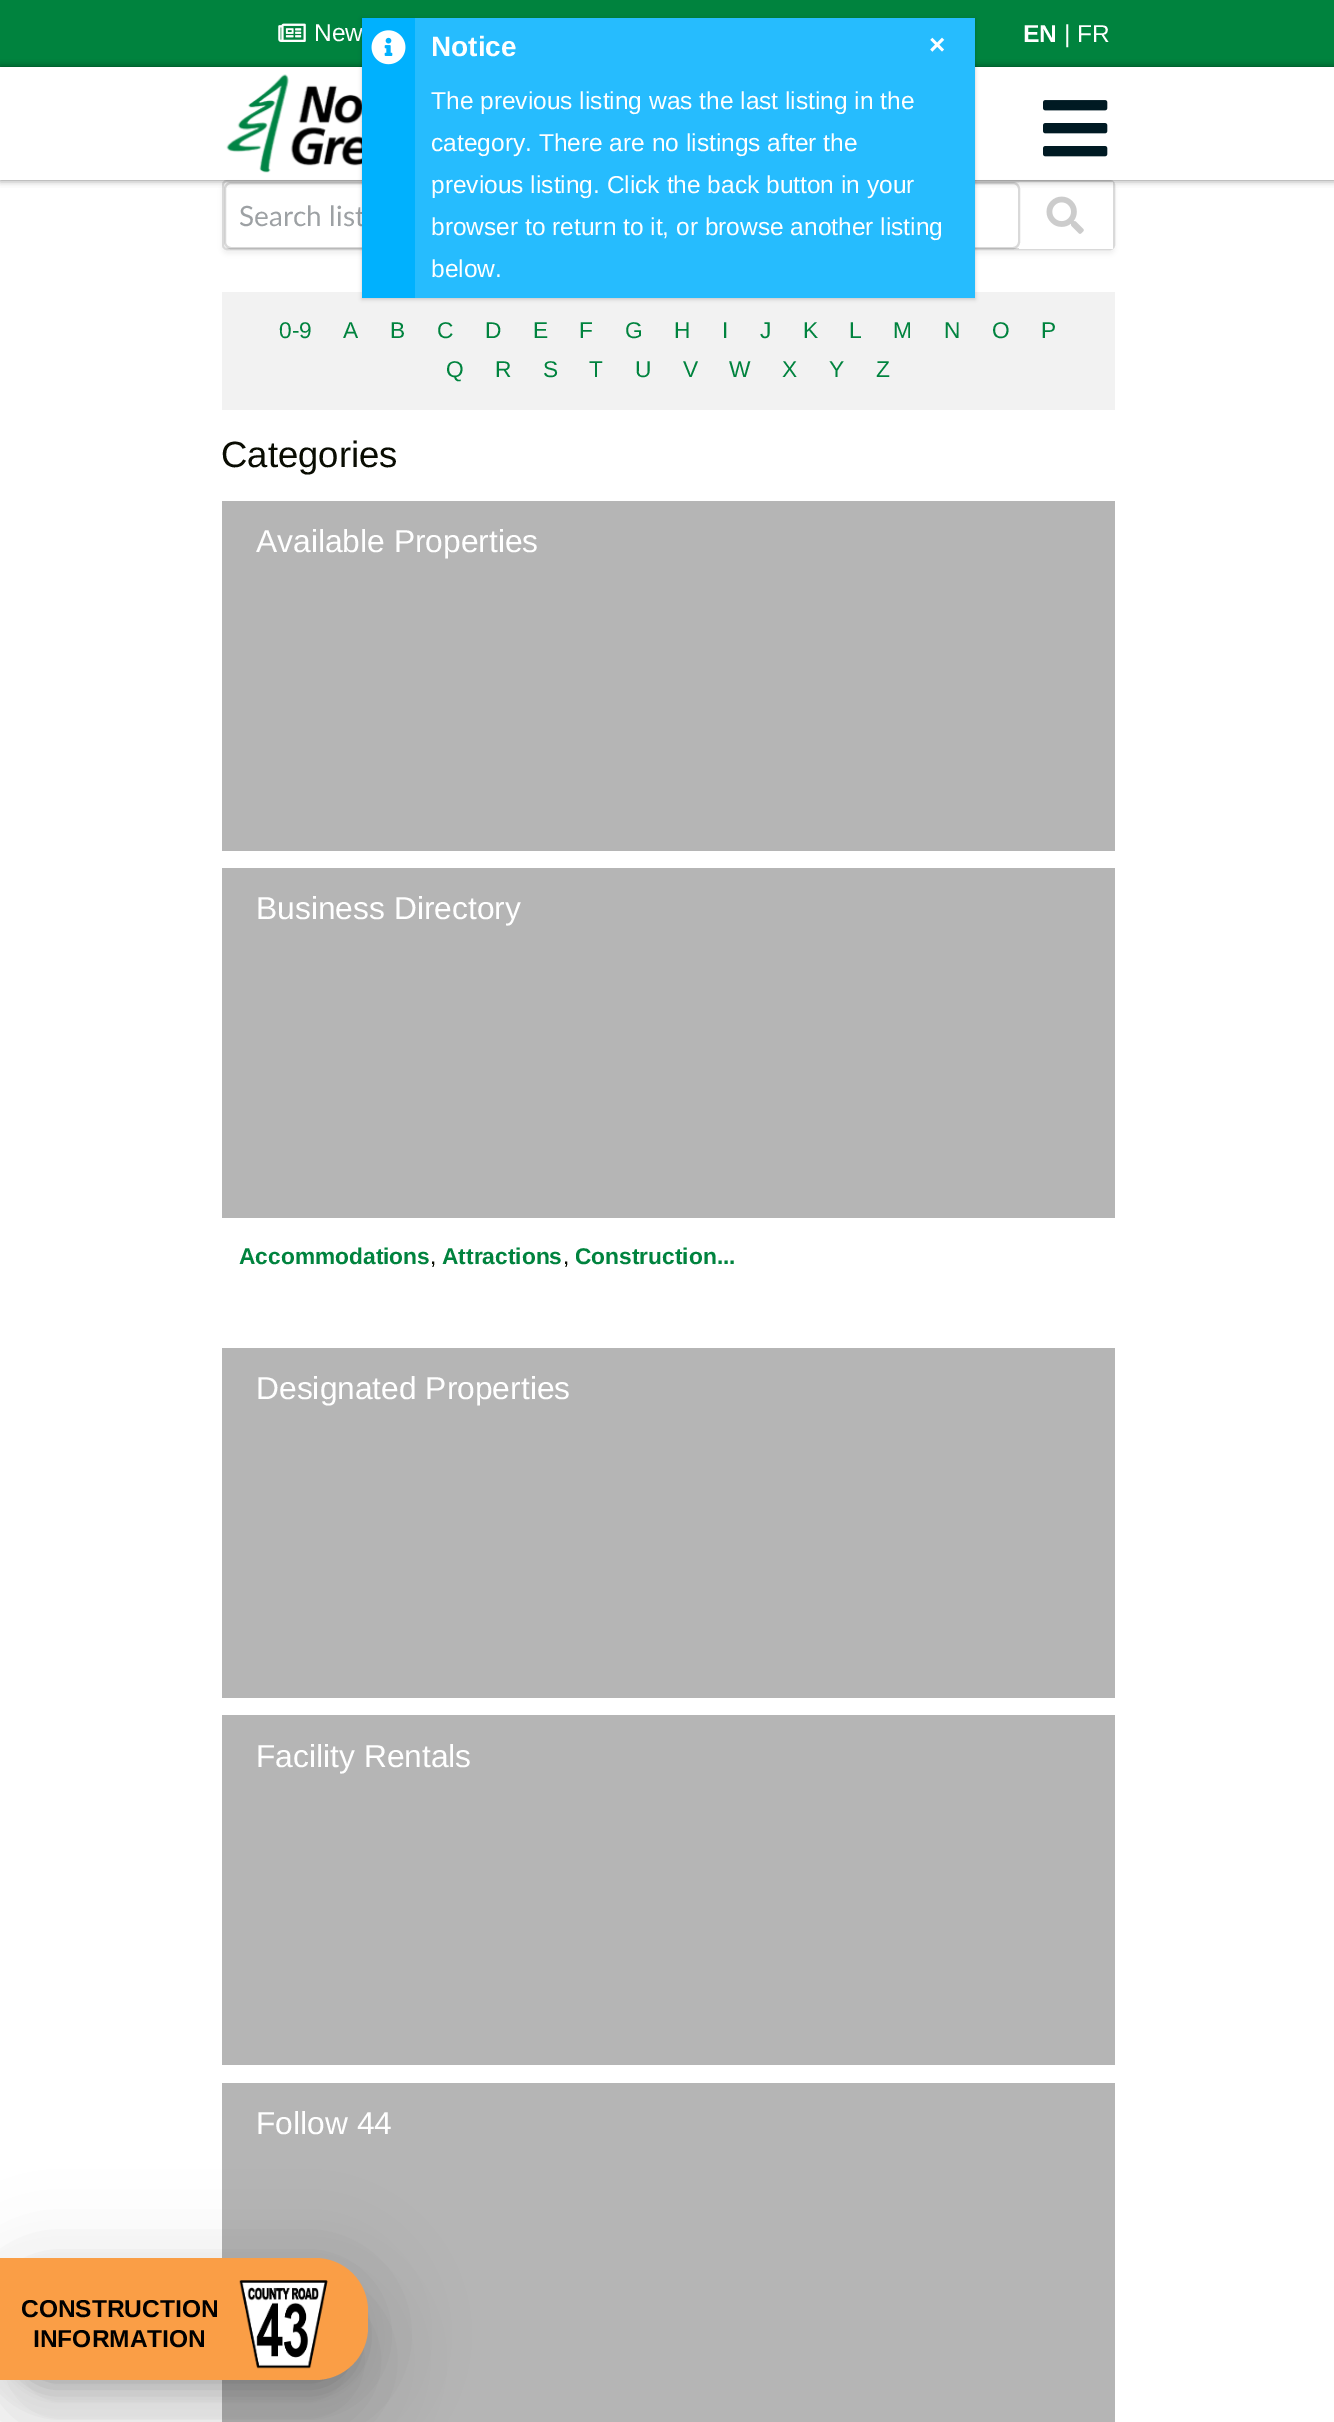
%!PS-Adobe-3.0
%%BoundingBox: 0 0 1334 2422
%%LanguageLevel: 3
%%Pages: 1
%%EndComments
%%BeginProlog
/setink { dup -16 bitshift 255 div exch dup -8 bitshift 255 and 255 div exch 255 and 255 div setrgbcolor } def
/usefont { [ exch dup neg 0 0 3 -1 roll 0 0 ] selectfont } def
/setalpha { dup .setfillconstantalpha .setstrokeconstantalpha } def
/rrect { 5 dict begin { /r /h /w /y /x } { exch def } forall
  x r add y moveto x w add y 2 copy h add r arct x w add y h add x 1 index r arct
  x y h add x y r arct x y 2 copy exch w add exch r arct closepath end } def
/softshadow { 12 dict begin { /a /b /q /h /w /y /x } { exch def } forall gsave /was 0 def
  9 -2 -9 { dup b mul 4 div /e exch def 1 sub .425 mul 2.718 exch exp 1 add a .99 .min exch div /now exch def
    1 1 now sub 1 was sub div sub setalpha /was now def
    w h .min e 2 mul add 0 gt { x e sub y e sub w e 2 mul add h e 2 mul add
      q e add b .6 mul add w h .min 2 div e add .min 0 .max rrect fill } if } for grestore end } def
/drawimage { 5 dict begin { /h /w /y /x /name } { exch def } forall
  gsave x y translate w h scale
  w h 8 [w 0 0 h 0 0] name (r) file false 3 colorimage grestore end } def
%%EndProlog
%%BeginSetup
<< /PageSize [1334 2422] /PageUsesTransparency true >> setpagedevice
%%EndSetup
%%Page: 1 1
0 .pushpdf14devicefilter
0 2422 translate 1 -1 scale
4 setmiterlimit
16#FFFFFF setink
0 0 1334 2422 rectfill
16#00833E setink
0 0 1334 67 rectfill
(img1.raw) 278 23 28 19 drawimage
/LiberationSans-Regular 24.5 usefont
16#FFFFFF setink
314 41 moveto (New) show
/LiberationSans-Bold 24.5 usefont
1023 42 moveto (EN) show
/LiberationSans-Regular 24.5 usefont
1064 42 moveto (| FR) show
16#000000 setink
222 184 893 70 5 2.5 0.06 softshadow
16#FFFFFF setink
222 180 893 70 5 rrect fill
0.15 setalpha
16#000000 setink
2 setlinewidth
223 181 891 68 4 rrect stroke
1 setalpha
16#FFFFFF setink
1019 182 94 67 rectfill
0.15 setalpha
16#000000 setink
225 183 794 65 6 rrect stroke
gsave
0 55 moveto 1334 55 lineto 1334 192 lineto 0 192 lineto closepath 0 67 moveto 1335 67 lineto 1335 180 lineto 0 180 lineto closepath eoclip newpath
1 setalpha
0 67 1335 113 0 3.5 0.5 softshadow
grestore
1 setalpha
(img2.raw) 226 74 136 99 drawimage
(img3.raw) 1043 100 65 57 drawimage
/Lato-Regular 28 usefont
16#9DA1A4 setink
239 226 moveto (Search list) show
(img4.raw) 1046 196 38 38 drawimage
16#F2F2F2 setink
222 292 893 118 rectfill
/LiberationSans-Regular 22.75 usefont
16#00833E setink
[
    [(0-9) 279 338]
    [(A) 343 338]
    [(B) 390 338]
    [(C) 437 338]
    [(D) 485 338]
    [(E) 533 338]
    [(F) 579 338]
    [(G) 625 338]
    [(H) 674 338]
    [(I) 722 338]
    [(J) 760 338]
    [(K) 803 338]
    [(L) 849 338]
    [(M) 893 338]
    [(N) 944 338]
    [(O) 992 338]
    [(P) 1041 338]
    [(Q) 446 377]
    [(R) 495 377]
    [(S) 543 377]
    [(T) 589 377]
    [(U) 635 377]
    [(V) 683 377]
    [(W) 729 377]
    [(X) 782 377]
    [(Y) 829 377]
    [(Z) 876 377]
] { aload pop moveto show } forall
/LiberationSans-Regular 36.5 usefont
16#090C02 setink
221 467 moveto (Categories) show
16#B5B5B5 setink
222 501 893 350 rectfill
/LiberationSans-Regular 31.75 usefont
16#FFFFFF setink
256 552 moveto (Available Properties) show
16#B5B5B5 setink
222 868 893 350 rectfill
16#FFFFFF setink
256 919 moveto (Business Directory) show
/LiberationSans-Bold 22.75 usefont
16#00833E setink
239 1264 moveto (Accommodations) show
/LiberationSans-Regular 22.75 usefont
16#090C02 setink
430 1264 moveto (,) show
/LiberationSans-Bold 22.75 usefont
16#00833E setink
442 1264 moveto (Attractions) show
/LiberationSans-Regular 22.75 usefont
16#090C02 setink
563 1264 moveto (,) show
/LiberationSans-Bold 22.75 usefont
16#00833E setink
575 1264 moveto (Construction...) show
16#B5B5B5 setink
222 1348 893 350 rectfill
/LiberationSans-Regular 31.75 usefont
16#FFFFFF setink
256 1399 moveto (Designated Properties) show
16#B5B5B5 setink
222 1715 893 350 rectfill
16#FFFFFF setink
256 1767 moveto (Facility Rentals) show
16#B5B5B5 setink
222 2083 893 339 rectfill
16#FFFFFF setink
256 2134 moveto (Follow 44) show
16#000000 setink
362 19 613 280 0 2 0.2 softshadow
16#00B1FE setink
362 18 53 280 rectfill
(img5.raw) 371 30 35 35 drawimage
16#26BCFE setink
415 18 560 280 rectfill
/LiberationSans-Bold 28 usefont
16#FFFFFF setink
431 56 moveto (Notice) show
929 54 moveto (×) show
/LiberationSans-Regular 24.5 usefont
[
    [(The previous listing was the last listing in the) 431 109]
    [(category. There are no listings after the) 431 151]
    [(previous listing. Click the back button in your) 431 193]
    [(browser to return to it, or browse another listing) 431 235]
    [(below.) 431 277]
] { aload pop moveto show } forall
16#000000 setink
-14 2259 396 151 67 40 0.1 softshadow
-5 2294 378 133 58 33 0.1 softshadow
12 2289 343 98 40 13 0.2 softshadow
16#FA9E46 setink
0 2258 moveto 315 2258 lineto 344.5 2258 368 2281.5 368 2311 curveto 368 2327 lineto 368 2356.5 344.5 2380 315 2380 curveto 0 2380 lineto closepath fill
/LiberationSans-Bold 24.5 usefont
16#000000 setink
21 2317 moveto (CONSTRUCTION) show
33 2347 moveto (INFORMATION) show
(img6.raw) 239 2280 89 89 drawimage
.poppdf14devicefilter showpage
%%EOF
